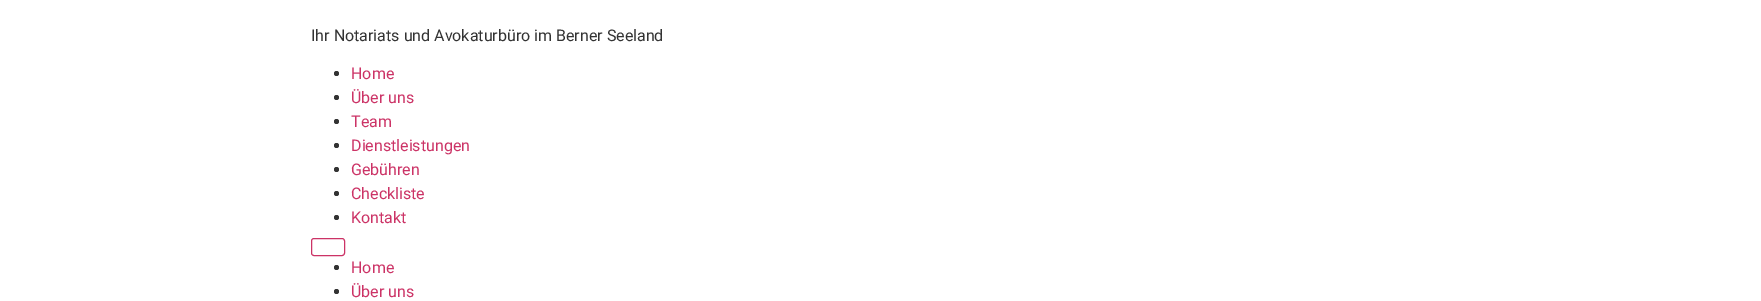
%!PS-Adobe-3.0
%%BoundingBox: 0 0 1761 301
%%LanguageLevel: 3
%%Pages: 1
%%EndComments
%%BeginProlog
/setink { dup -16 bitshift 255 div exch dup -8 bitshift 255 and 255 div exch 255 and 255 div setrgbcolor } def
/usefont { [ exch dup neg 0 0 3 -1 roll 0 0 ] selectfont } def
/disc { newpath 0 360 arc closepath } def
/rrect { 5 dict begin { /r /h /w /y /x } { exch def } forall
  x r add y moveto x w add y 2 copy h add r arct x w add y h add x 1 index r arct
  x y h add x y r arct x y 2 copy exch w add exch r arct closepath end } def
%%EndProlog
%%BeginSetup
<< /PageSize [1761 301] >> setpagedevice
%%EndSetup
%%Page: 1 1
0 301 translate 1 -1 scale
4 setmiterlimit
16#FFFFFF setink
0 0 1761 301 rectfill
/Roboto-Regular 16 usefont
16#333333 setink
311 41 moveto (Ihr Notariats und Avokaturbüro im Berner Seeland) show
336.5 73.5 2.5 disc fill
16#CC3366 setink
351 79 moveto (Home) show
16#333333 setink
336.5 97.5 2.5 disc fill
16#CC3366 setink
351 103 moveto (Über uns) show
16#333333 setink
336.5 121.5 2.5 disc fill
16#CC3366 setink
351 127 moveto (Team) show
16#333333 setink
336.5 145.5 2.5 disc fill
16#CC3366 setink
351 151 moveto (Dienstleistungen) show
16#333333 setink
336.5 169.5 2.5 disc fill
16#CC3366 setink
351 175 moveto (Gebühren) show
16#333333 setink
336.5 193.5 2.5 disc fill
16#CC3366 setink
351 199 moveto (Checkliste) show
16#333333 setink
336.5 217.5 2.5 disc fill
16#CC3366 setink
351 223 moveto (Kontakt) show
311.5 238.5 33 17 2.5 rrect stroke
16#333333 setink
336.5 267.5 2.5 disc fill
16#CC3366 setink
351 273 moveto (Home) show
16#333333 setink
336.5 291.5 2.5 disc fill
16#CC3366 setink
351 297 moveto (Über uns) show
showpage
%%EOF
